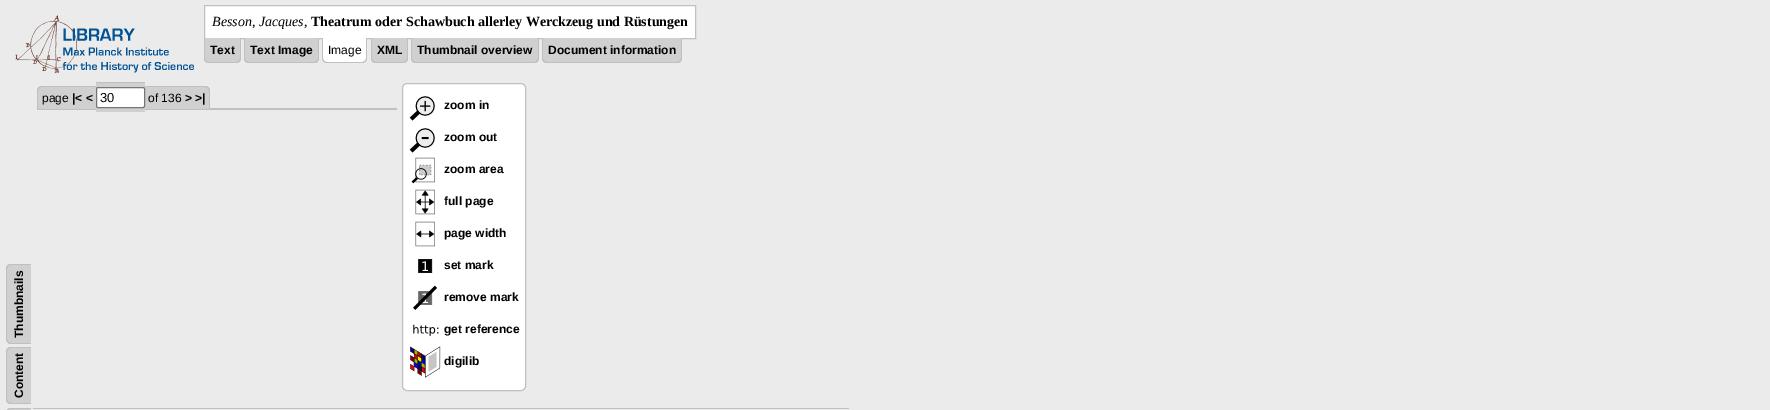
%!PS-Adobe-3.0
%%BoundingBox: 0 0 1770 410
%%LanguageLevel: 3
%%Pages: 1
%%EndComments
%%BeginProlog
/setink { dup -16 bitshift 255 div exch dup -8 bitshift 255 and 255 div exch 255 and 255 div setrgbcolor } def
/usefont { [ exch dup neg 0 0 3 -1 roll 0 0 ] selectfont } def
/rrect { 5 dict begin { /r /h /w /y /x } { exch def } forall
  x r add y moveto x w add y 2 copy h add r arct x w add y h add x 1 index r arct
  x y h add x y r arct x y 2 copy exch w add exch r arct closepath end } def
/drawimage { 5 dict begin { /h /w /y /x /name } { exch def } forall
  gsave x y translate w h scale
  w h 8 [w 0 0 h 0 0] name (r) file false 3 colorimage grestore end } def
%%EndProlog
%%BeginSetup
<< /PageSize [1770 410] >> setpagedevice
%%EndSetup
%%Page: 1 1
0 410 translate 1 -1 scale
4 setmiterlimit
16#EBEBEB setink
0 0 1770 410 rectfill
(img1.raw) 15 15 179 58 drawimage
16#FFFFFF setink
204.5 5.5 moveto 695.5 5.5 lineto 695.5 38.5 lineto 204.5 38.5 lineto closepath gsave fill grestore
16#C0C0C0 setink
stroke
/LiberationSerif-Italic 14 usefont
16#000000 setink
212 26 moveto (Besson, Jacques) show
/LiberationSerif-Regular 14 usefont
304 26 moveto (,) show
/LiberationSerif-Bold 14 usefont
311 26 moveto (Theatrum oder Schawbuch allerley Werckzeug und Rüstungen) show
16#D0D0D0 setink
204 38 moveto 241 38 lineto 241 58 lineto 241 61 239 63 236 63 curveto 209 63 lineto 206 63 204 61 204 58 curveto closepath fill
16#C0C0C0 setink
204 38 moveto 241 38 lineto 241 58 lineto 241 61 239 63 236 63 curveto 209 63 lineto 206 63 204 61 204 58 curveto closepath 205 38 moveto 240 38 lineto 240 58 lineto 240 60 238 62 236 62 curveto 209 62 lineto 207 62 205 60 205 58 curveto closepath eofill
/LiberationSans-Bold 12 usefont
16#000000 setink
210 54 moveto (Text) show
16#D0D0D0 setink
244 38 moveto 319 38 lineto 319 58 lineto 319 61 317 63 314 63 curveto 249 63 lineto 246 63 244 61 244 58 curveto closepath fill
16#C0C0C0 setink
244 38 moveto 319 38 lineto 319 58 lineto 319 61 317 63 314 63 curveto 249 63 lineto 246 63 244 61 244 58 curveto closepath 245 38 moveto 318 38 lineto 318 58 lineto 318 60 316 62 314 62 curveto 249 62 lineto 247 62 245 60 245 58 curveto closepath eofill
16#000000 setink
250 54 moveto (Text Image) show
16#FFFFFF setink
322 38 moveto 367 38 lineto 367 58 lineto 367 61 365 63 362 63 curveto 327 63 lineto 324 63 322 61 322 58 curveto closepath fill
16#C0C0C0 setink
322 38 moveto 367 38 lineto 367 58 lineto 367 61 365 63 362 63 curveto 327 63 lineto 324 63 322 61 322 58 curveto closepath 323 38 moveto 366 38 lineto 366 58 lineto 366 60 364 62 362 62 curveto 327 62 lineto 325 62 323 60 323 58 curveto closepath eofill
/LiberationSans-Regular 12 usefont
16#000000 setink
328 54 moveto (Image) show
16#D0D0D0 setink
371 38 moveto 408 38 lineto 408 58 lineto 408 61 406 63 403 63 curveto 376 63 lineto 373 63 371 61 371 58 curveto closepath fill
16#C0C0C0 setink
371 38 moveto 408 38 lineto 408 58 lineto 408 61 406 63 403 63 curveto 376 63 lineto 373 63 371 61 371 58 curveto closepath 372 38 moveto 407 38 lineto 407 58 lineto 407 60 405 62 403 62 curveto 376 62 lineto 374 62 372 60 372 58 curveto closepath eofill
/LiberationSans-Bold 12 usefont
16#000000 setink
377 54 moveto (XML) show
16#D0D0D0 setink
411 38 moveto 539 38 lineto 539 58 lineto 539 61 537 63 534 63 curveto 416 63 lineto 413 63 411 61 411 58 curveto closepath fill
16#C0C0C0 setink
411 38 moveto 539 38 lineto 539 58 lineto 539 61 537 63 534 63 curveto 416 63 lineto 413 63 411 61 411 58 curveto closepath 412 38 moveto 538 38 lineto 538 58 lineto 538 60 536 62 534 62 curveto 416 62 lineto 414 62 412 60 412 58 curveto closepath eofill
16#000000 setink
417 54 moveto (Thumbnail overview) show
16#D0D0D0 setink
542 38 moveto 682 38 lineto 682 58 lineto 682 61 680 63 677 63 curveto 547 63 lineto 544 63 542 61 542 58 curveto closepath fill
16#C0C0C0 setink
542 38 moveto 682 38 lineto 682 58 lineto 682 61 680 63 677 63 curveto 547 63 lineto 544 63 542 61 542 58 curveto closepath 543 38 moveto 681 38 lineto 681 58 lineto 681 60 679 62 677 62 curveto 547 62 lineto 545 62 543 60 543 58 curveto closepath eofill
16#000000 setink
548 54 moveto (Document information) show
16#C0C0C0 setink
37 108 360 2 rectfill
16#D0D0D0 setink
42 86 moveto 72 86 lineto 72 109 lineto 37 109 lineto 37 91 lineto 37 88 39 86 42 86 curveto closepath fill
16#C0C0C0 setink
42 86 moveto 72 86 lineto 72 109 lineto 37 109 lineto 37 91 lineto 37 88 39 86 42 86 curveto closepath 42 87 moveto 72 87 lineto 72 109 lineto 38 109 lineto 38 91 lineto 38 89 40 87 42 87 curveto closepath eofill
[
    [72 87 10 22 16#D0D0D0]
    [72 86 10 1 16#C0C0C0]
    [82 86 14 23 16#D0D0D0]
    [82 86 14 1 16#C0C0C0]
    [96 83 49 29 16#D0D0D0]
    [96 82 49 1 16#C0C0C0]
    [145 86 3 23 16#D0D0D0]
    [145 86 40 1 16#C0C0C0]
    [148 87 37 22 16#D0D0D0]
    [185 86 10 23 16#D0D0D0]
    [185 86 10 1 16#C0C0C0]
] { aload pop setink rectfill } forall
16#D0D0D0 setink
195 86 moveto 205 86 lineto 208 86 210 88 210 91 curveto 210 109 lineto 195 109 lineto closepath fill
16#C0C0C0 setink
195 86 moveto 205 86 lineto 208 86 210 88 210 91 curveto 210 109 lineto 195 109 lineto closepath 195 87 moveto 205 87 lineto 207 87 209 89 209 91 curveto 209 109 lineto 195 109 lineto closepath eofill
/LiberationSans-Regular 12 usefont
16#000000 setink
42 102 moveto (page) show
/LiberationSans-Bold 12 usefont
72 102 moveto (|< <) show
16#FFFFFF setink
96.5 87.5 48 20 1.5 rrect gsave fill grestore
16#767676 setink
stroke
/LiberationSans-Regular 13 usefont
16#000000 setink
100 102 moveto (30) show
/LiberationSans-Regular 12 usefont
148 102 moveto (of 136) show
/LiberationSans-Bold 12 usefont
185 102 moveto (> >|) show
16#D0D0D0 setink
6 339 moveto 6 269 lineto 6 266 8 264 11 264 curveto 31 264 lineto 31 344 lineto 11 344 lineto 8 344 6 341 6 339 curveto closepath fill
16#C0C0C0 setink
6 339 moveto 6 269 lineto 6 266 8 264 11 264 curveto 31 264 lineto 31 344 lineto 11 344 lineto 8 344 6 341 6 339 curveto closepath 7 339 moveto 7 269 lineto 7 267 9 265 11 265 curveto 31 265 lineto 31 343 lineto 11 343 lineto 9 343 7 341 7 339 curveto closepath eofill
16#000000 setink
gsave 23 338 translate -90 rotate 0 0 moveto (Thumbnails) show grestore
16#D0D0D0 setink
6 399 moveto 6 352 lineto 6 349 8 347 11 347 curveto 31 347 lineto 31 404 lineto 11 404 lineto 8 404 6 402 6 399 curveto closepath fill
16#C0C0C0 setink
6 399 moveto 6 352 lineto 6 349 8 347 11 347 curveto 31 347 lineto 31 404 lineto 11 404 lineto 8 404 6 402 6 399 curveto closepath 7 399 moveto 7 352 lineto 7 350 9 348 11 348 curveto 31 348 lineto 31 403 lineto 11 403 lineto 9 403 7 401 7 399 curveto closepath eofill
16#000000 setink
gsave 23 398 translate -90 rotate 0 0 moveto (Content) show grestore
16#D0D0D0 setink
6 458 moveto 6 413 lineto 6 410 8 408 11 408 curveto 31 408 lineto 31 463 lineto 11 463 lineto 8 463 6 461 6 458 curveto closepath fill
16#C0C0C0 setink
6 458 moveto 6 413 lineto 6 410 8 408 11 408 curveto 31 408 lineto 31 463 lineto 11 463 lineto 8 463 6 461 6 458 curveto closepath 7 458 moveto 7 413 lineto 7 410 9 409 11 409 curveto 31 409 lineto 31 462 lineto 11 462 lineto 9 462 7 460 7 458 curveto closepath eofill
16#FFFFFF setink
402.5 83.5 123 307 4.5 rrect gsave fill grestore
16#C0C0C0 setink
stroke
(img2.raw) 409 96 26 25 drawimage
16#000000 setink
444 109 moveto (zoom in) show
(img3.raw) 409 128 26 25 drawimage
444 141 moveto (zoom out) show
(img4.raw) 411 157 24 27 drawimage
444 173 moveto (zoom area) show
(img5.raw) 415 189 20 26 drawimage
444 205 moveto (full page) show
(img6.raw) 415 221 20 26 drawimage
444 237 moveto (page width) show
(img7.raw) 418 259 15 14 drawimage
444 269 moveto (set mark) show
(img8.raw) 413 285 24 25 drawimage
444 301 moveto (remove mark) show
(img9.raw) 413 324 26 12 drawimage
444 333 moveto (get reference) show
(img10.raw) 410 346 31 32 drawimage
444 365 moveto (digilib) show
16#C0C0C0 setink
33 408 816 1 rectfill
showpage
%%EOF
